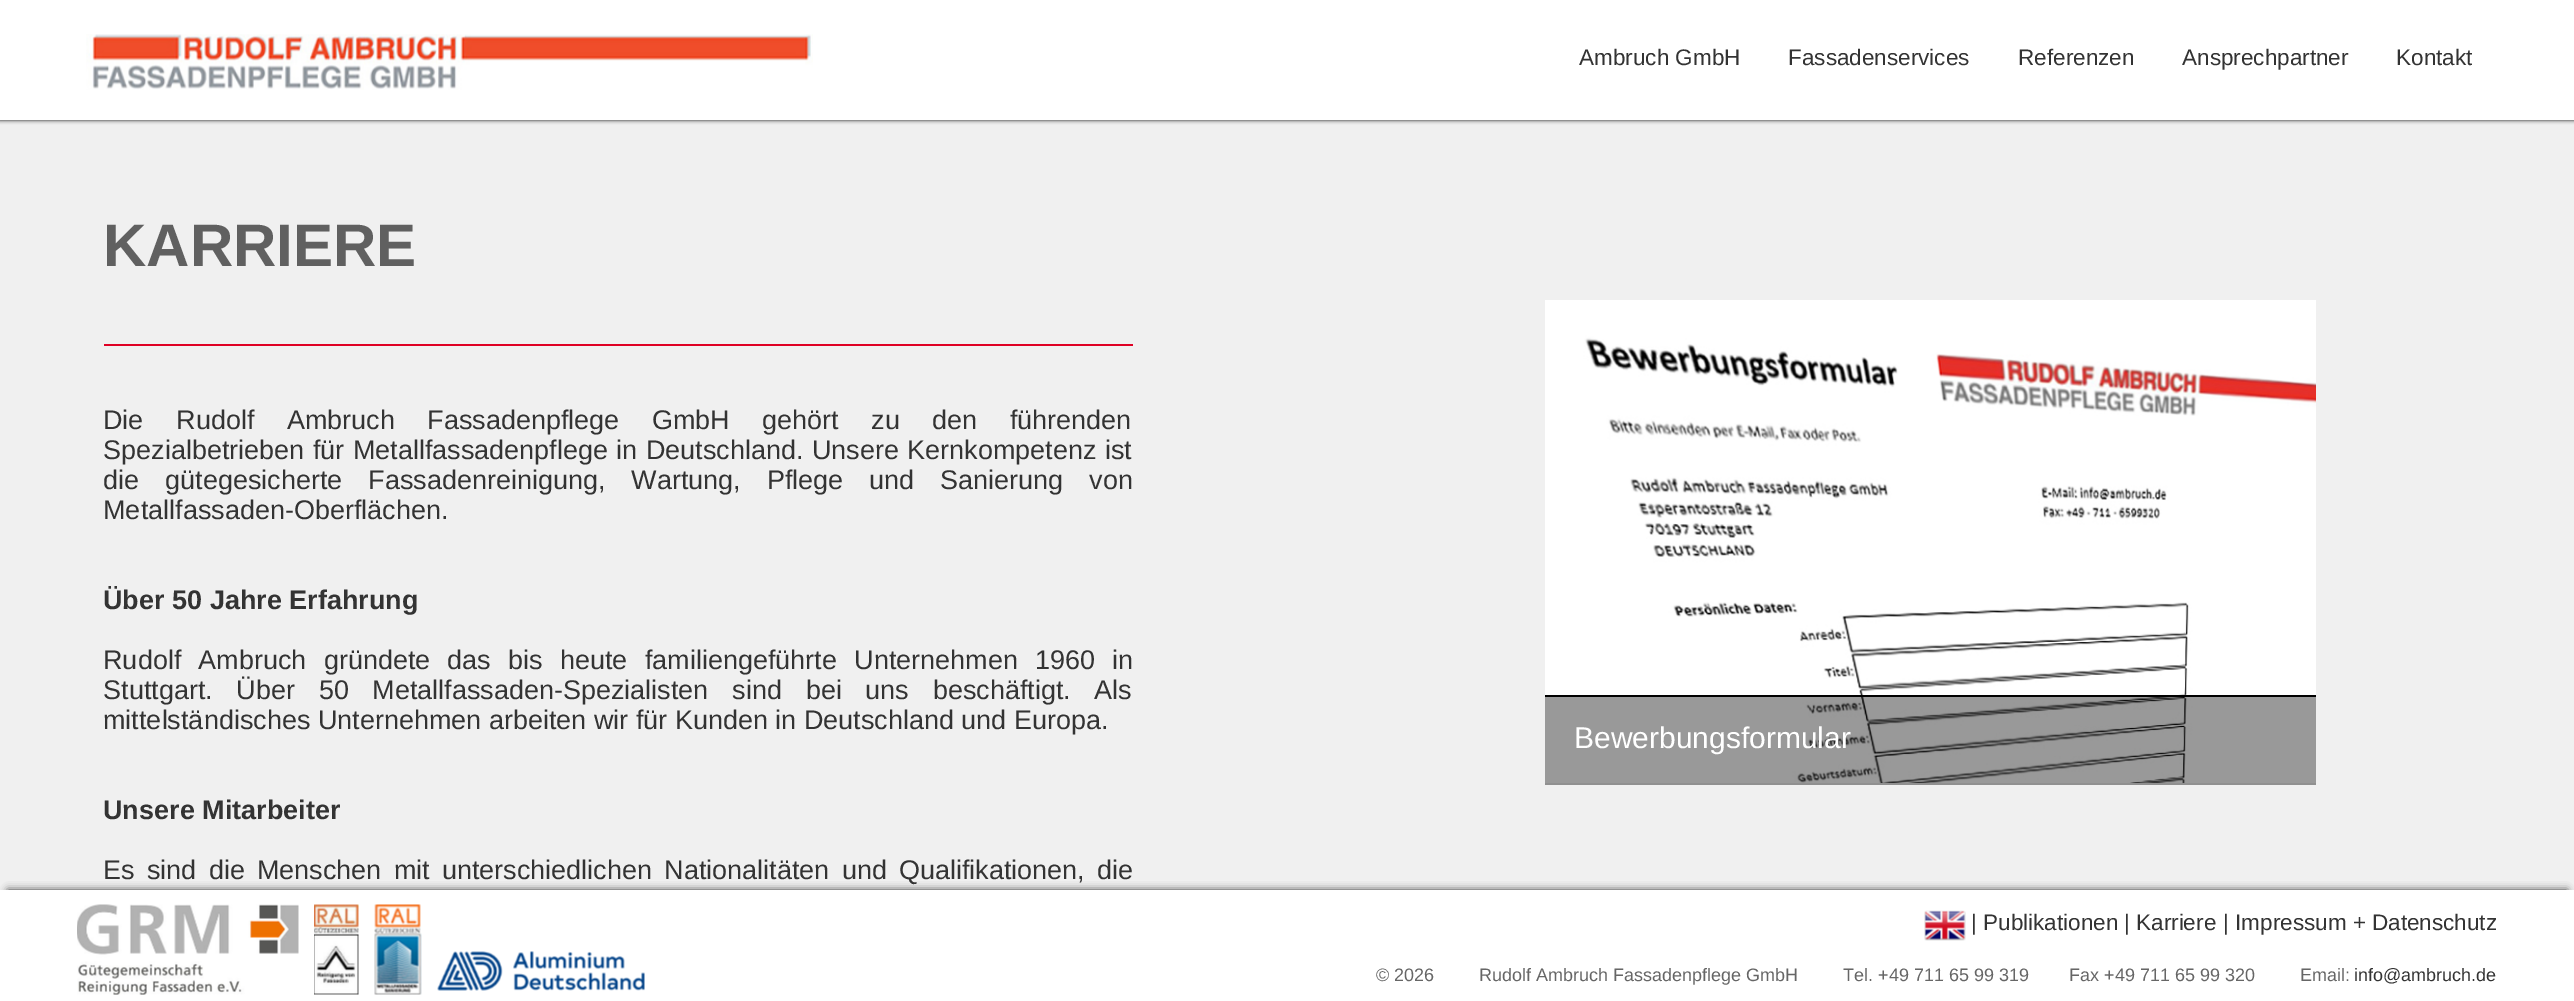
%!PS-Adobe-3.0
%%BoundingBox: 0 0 2574 1001
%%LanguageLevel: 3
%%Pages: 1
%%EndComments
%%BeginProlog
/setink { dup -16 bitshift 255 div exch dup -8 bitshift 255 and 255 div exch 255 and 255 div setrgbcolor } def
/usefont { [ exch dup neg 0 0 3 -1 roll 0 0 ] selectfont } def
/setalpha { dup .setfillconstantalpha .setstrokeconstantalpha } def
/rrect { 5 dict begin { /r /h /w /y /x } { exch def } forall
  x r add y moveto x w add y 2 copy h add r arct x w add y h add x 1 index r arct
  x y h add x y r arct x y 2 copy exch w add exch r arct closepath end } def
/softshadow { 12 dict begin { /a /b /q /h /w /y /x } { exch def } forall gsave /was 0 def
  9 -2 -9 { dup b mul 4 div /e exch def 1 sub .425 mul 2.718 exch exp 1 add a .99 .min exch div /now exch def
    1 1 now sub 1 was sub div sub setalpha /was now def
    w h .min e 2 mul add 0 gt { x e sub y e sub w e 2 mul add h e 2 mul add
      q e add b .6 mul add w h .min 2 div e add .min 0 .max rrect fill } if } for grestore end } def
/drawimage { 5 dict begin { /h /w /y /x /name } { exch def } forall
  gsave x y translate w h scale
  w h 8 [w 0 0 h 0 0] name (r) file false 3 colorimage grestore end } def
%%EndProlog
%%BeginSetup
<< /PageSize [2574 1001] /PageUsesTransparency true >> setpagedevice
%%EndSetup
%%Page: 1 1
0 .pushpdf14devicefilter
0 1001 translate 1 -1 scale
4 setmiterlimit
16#F0F0F0 setink
0 0 2574 1001 rectfill
16#000000 setink
0 0 2574 120 0 2 1 softshadow
16#FFFFFF setink
0 0 2574 120 rectfill
(img1.raw) 86 34 727 56 drawimage
/LiberationSans-Regular 22.5 usefont
16#333333 setink
[
    [(Ambruch GmbH) 1579 65]
    [(Fassadenservices) 1788 65]
    [(Referenzen) 2018 65]
    [(Ansprechpartner) 2182 65]
    [(Kontakt) 2396 65]
] { aload pop moveto show } forall
16#DF0024 setink
104 344 1029 2 rectfill
/LiberationSans-Bold 60 usefont
16#606060 setink
103 266 moveto (KARRIERE) show
/LiberationSans-Regular 27 usefont
16#333333 setink
103 429 moveto 25 0 32 (Die Rudolf Ambruch Fassadenpflege GmbH gehört zu den führenden) widthshow
103 459 moveto 1 0 32 (Spezialbetrieben für Metallfassadenpflege in Deutschland. Unsere Kernkompetenz ist) widthshow
103 489 moveto 18.5 0 32 (die gütegesicherte Fassadenreinigung, Wartung, Pflege und Sanierung von) widthshow
103 519 moveto (Metallfassaden-Oberflächen.) show
/LiberationSans-Bold 27 usefont
103 609 moveto (Über 50 Jahre Erfahrung) show
/LiberationSans-Regular 27 usefont
103 669 moveto 9.75 0 32 (Rudolf Ambruch gründete das bis heute familiengeführte Unternehmen 1960 in) widthshow
103 699 moveto 16.25 0 32 (Stuttgart. Über 50 Metallfassaden-Spezialisten sind bei uns beschäftigt. Als) widthshow
103 729 moveto (mittelständisches Unternehmen arbeiten wir für Kunden in Deutschland und Europa.) show
/LiberationSans-Bold 27 usefont
103 819 moveto (Unsere Mitarbeiter) show
/LiberationSans-Regular 27 usefont
103 879 moveto 4.75 0 32 (Es sind die Menschen mit unterschiedlichen Nationalitäten und Qualifikationen, die) widthshow
(img2.raw) 1545 300 771 483 drawimage
0.4 setalpha
16#000000 setink
1545 697 771 88 rectfill
1 setalpha
1545 695 771 2 rectfill
/LiberationSans-Regular 30 usefont
16#FFFFFF setink
1574 748 moveto (Bewerbungsformular) show
16#333333 setink
8 890 2559 105 0 4 1 softshadow
16#FFFFFF setink
0 890 2574 111 rectfill
(img3.raw) 77 904 222 91 drawimage
(img4.raw) 314 904 45 91 drawimage
(img5.raw) 374 904 48 91 drawimage
(img6.raw) 1924 910 42 31 drawimage
/LiberationSans-Regular 22.5 usefont
16#333333 setink
[
    [(|) 1971 930]
    [(Publikationen) 1983 930]
    [(|) 2124 930]
    [(Karriere) 2136 930]
    [(|) 2223 930]
    [(Impressum + Datenschutz) 2235 930]
] { aload pop moveto show } forall
(img7.raw) 437 951 208 40 drawimage
/LiberationSans-Regular 18 usefont
16#666666 setink
1376 981 moveto (© 2026         Rudolf Ambruch Fassadenpflege GmbH         Tel. +49 711 65 99 319) show
2069 981 moveto (Fax +49 711 65 99 320         Email:) show
16#333333 setink
2354 981 moveto (info@ambruch.de) show
.poppdf14devicefilter showpage
%%EOF
